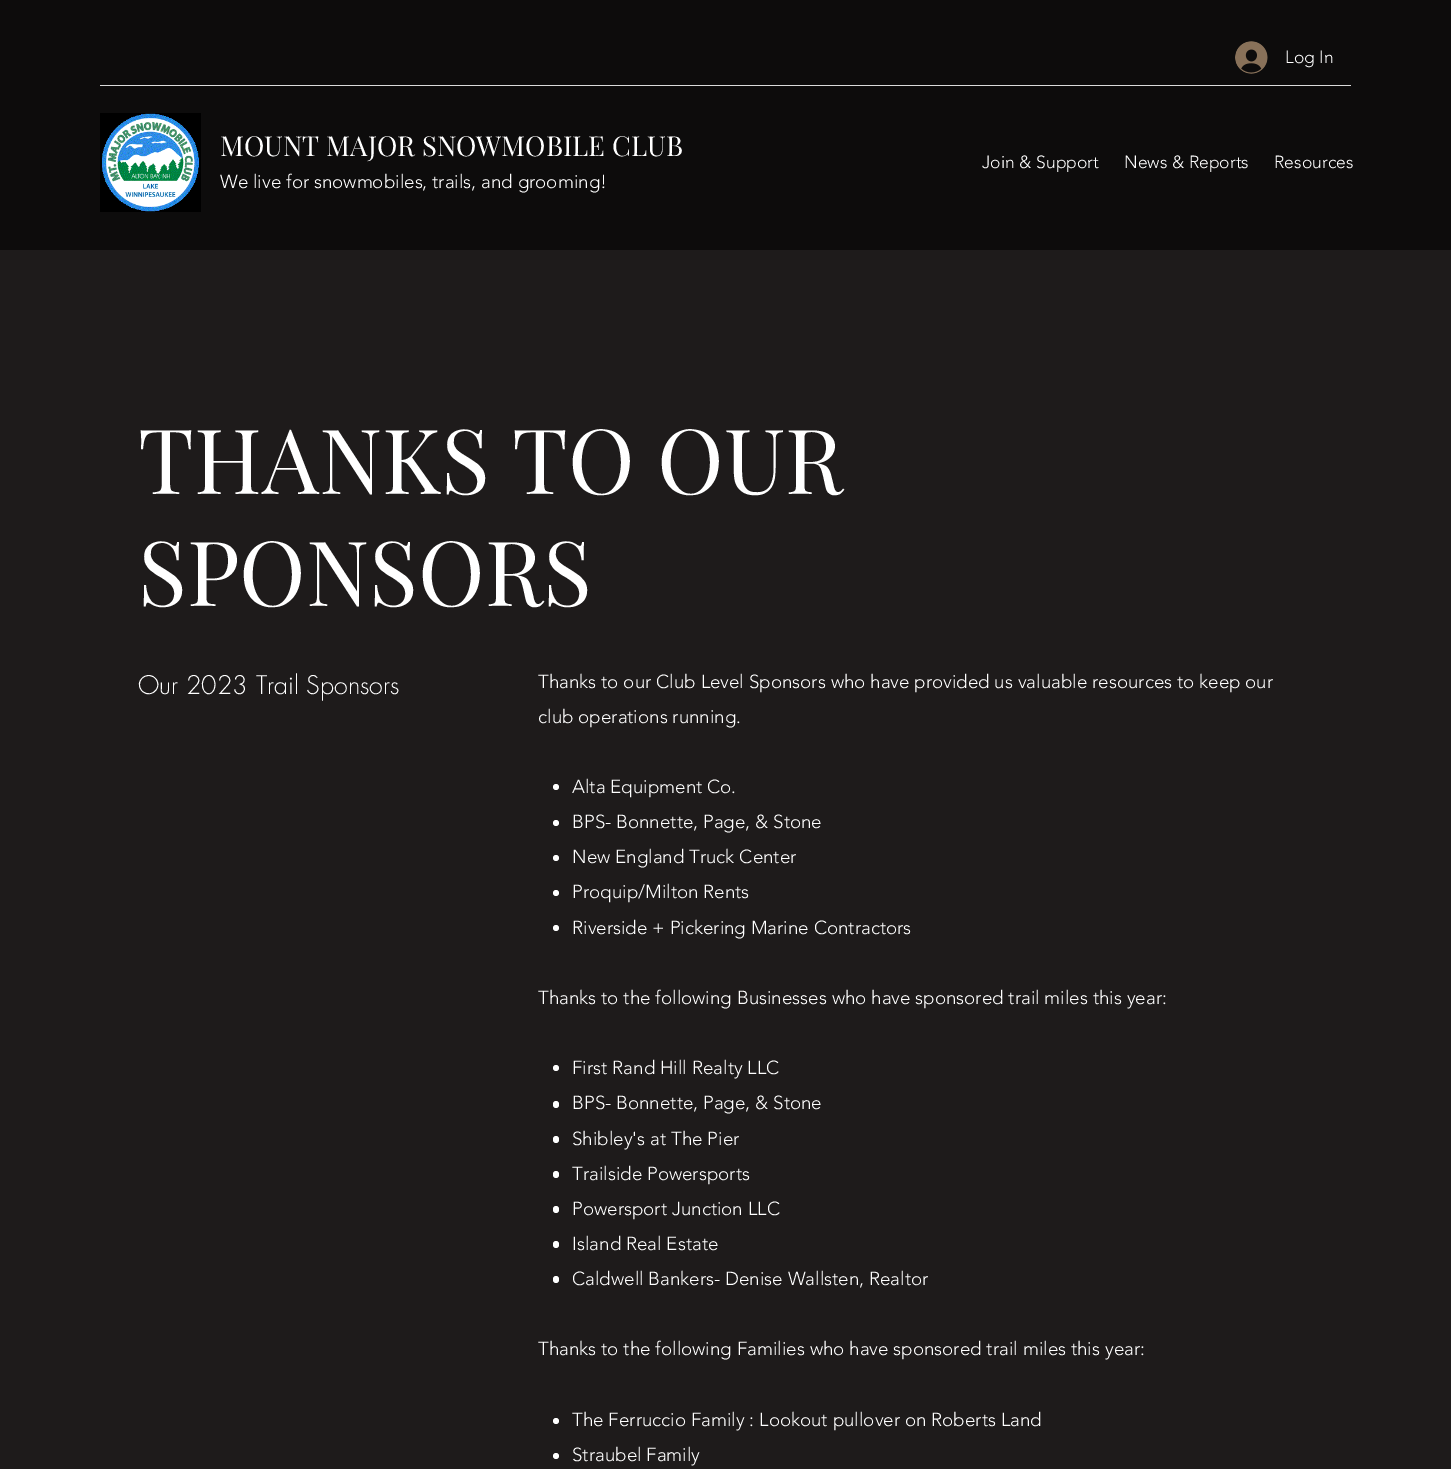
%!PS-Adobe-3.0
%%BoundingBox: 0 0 1451 1469
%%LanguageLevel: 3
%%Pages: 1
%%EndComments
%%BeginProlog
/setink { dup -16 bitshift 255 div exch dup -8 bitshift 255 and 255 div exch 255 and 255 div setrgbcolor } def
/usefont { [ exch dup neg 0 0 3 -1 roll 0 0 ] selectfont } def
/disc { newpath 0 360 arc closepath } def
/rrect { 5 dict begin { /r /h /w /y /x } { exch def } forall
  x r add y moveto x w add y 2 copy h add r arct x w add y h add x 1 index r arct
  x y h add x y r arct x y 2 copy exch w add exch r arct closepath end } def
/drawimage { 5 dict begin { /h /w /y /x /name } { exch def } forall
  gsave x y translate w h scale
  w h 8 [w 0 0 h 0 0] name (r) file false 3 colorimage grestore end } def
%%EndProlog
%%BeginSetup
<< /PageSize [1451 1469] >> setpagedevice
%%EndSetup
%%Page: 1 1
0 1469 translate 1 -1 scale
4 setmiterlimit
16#1E1B1B setink
0 0 1451 1469 rectfill
16#0D0C0C setink
0 0 1451 250 rectfill
(img1.raw) 1235 41 33 33 drawimage
/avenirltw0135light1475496-Light 17.5 usefont
16#FFFFFF setink
1285 63 moveto (Log In) show
16#DBDBDB setink
100 85 1251 1 rectfill
(img2.raw) 100 113 101 99 drawimage
/PlayfairDisplay-Regular 27.5 usefont
16#FFFFFF setink
220 156 moveto (MOUNT MAJOR SNOWMOBILE CLUB) show
/avenirltw0135light1475496-Light 18.75 usefont
220 188 moveto (We live for snowmobiles, trails, and grooming!) show
/avenirltw0135light1475496-Light 17.5 usefont
[
    [(Join & Support) 982 168]
    [(News & Reports) 1124 168]
    [(Resources) 1274 168]
] { aload pop moveto show } forall
/PlayfairDisplay-Regular 90 usefont
138 494 moveto (THANKS TO OUR) show
138 606 moveto (SPONSORS) show
/futura-Light 25 usefont
138 694 moveto (Our 2023 Trail Sponsors) show
/avenirltw0135light1475496-Light 18.75 usefont
538 688 moveto (Thanks to our Club Level Sponsors who have provided us valuable resources to keep our) show
538 723 moveto (club operations running.) show
556 787 3 disc fill
572 793 moveto (Alta Equipment Co.) show
556 823 3 disc fill
572 828 moveto (BPS- Bonnette, Page, & Stone) show
556 858 3 disc fill
572 863 moveto (New England Truck Center) show
556 893 3 disc fill
572 898 moveto (Proquip/Milton Rents) show
556 928 3 disc fill
572 934 moveto (Riverside + Pickering Marine Contractors) show
538 1004 moveto (Thanks to the following Businesses who have sponsored trail miles this year:) show
556 1068 3 disc fill
572 1074 moveto (First Rand Hill Realty LLC) show
553 1101 6 7 3 rrect fill
572 1109 moveto (BPS- Bonnette, Page, & Stone) show
553 1136 6 7 3 rrect fill
572 1145 moveto (Shibley's at The Pier) show
553 1171 6 7 3 rrect fill
572 1180 moveto (Trailside Powersports) show
553 1206 6 7 3 rrect fill
572 1215 moveto (Powersport Junction LLC) show
553 1241 6 7 3 rrect fill
572 1250 moveto (Island Real Estate) show
553 1276 6 7 3 rrect fill
572 1285 moveto (Caldwell Bankers- Denise Wallsten, Realtor) show
538 1355 moveto (Thanks to the following Families who have sponsored trail miles this year:) show
556 1421 3 disc fill
572 1426 moveto (The Ferruccio Family : Lookout pullover on Roberts Land) show
556 1456 3 disc fill
572 1461 moveto (Straubel Family) show
showpage
%%EOF
